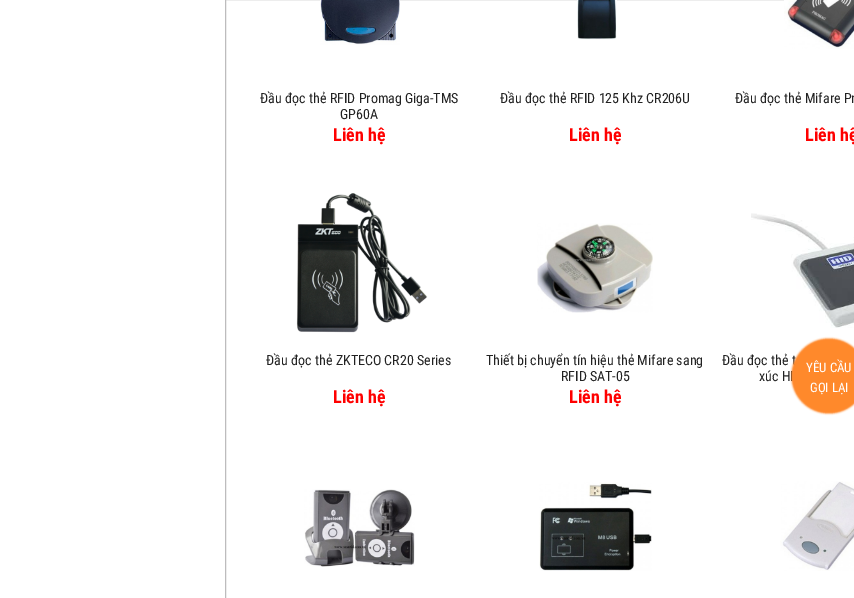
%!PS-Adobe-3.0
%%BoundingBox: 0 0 854 598
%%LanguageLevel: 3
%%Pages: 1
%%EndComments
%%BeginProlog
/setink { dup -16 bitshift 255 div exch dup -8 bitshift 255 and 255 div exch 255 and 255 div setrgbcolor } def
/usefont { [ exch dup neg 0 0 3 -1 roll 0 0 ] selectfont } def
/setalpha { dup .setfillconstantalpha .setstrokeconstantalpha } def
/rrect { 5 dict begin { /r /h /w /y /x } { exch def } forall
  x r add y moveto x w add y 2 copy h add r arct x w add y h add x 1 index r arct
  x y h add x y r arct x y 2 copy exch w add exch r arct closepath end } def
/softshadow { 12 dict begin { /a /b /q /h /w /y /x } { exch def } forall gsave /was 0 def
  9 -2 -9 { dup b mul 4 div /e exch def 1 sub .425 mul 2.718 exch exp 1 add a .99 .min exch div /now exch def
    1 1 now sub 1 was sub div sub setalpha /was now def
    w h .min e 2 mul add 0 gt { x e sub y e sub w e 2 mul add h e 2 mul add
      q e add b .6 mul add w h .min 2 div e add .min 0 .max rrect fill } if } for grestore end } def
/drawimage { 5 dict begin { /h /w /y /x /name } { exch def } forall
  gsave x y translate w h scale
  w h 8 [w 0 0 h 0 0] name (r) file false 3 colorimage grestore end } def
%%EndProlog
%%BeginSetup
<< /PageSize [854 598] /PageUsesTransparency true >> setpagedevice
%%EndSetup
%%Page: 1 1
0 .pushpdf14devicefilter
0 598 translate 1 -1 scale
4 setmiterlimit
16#FFFFFF setink
0 0 854 598 rectfill
16#BDBCBD setink
225.5 -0.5 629 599 rectstroke
(img1.raw) 320 0 80 45 drawimage
/RobotoCondensed-Regular 14 usefont
16#222222 setink
260 103 moveto (Đầu đọc thẻ RFID Promag Giga-TMS) show
340 119 moveto (GP60A) show
/RobotoCondensed-Bold 18 usefont
16#FF0000 setink
333 141 moveto (Liên hệ) show
(img2.raw) 577 0 40 40 drawimage
/RobotoCondensed-Regular 14 usefont
16#222222 setink
500 103 moveto (Đầu đọc thẻ RFID 125 Khz CR206U) show
/RobotoCondensed-Bold 18 usefont
16#FF0000 setink
569 141 moveto (Liên hệ) show
(img3.raw) 784 0 70 49 drawimage
/RobotoCondensed-Regular 14 usefont
16#222222 setink
735 103 moveto (Đầu đọc thẻ Mifare Pr) show
/RobotoCondensed-Bold 18 usefont
16#FF0000 setink
805 141 moveto (Liên hệ) show
(img4.raw) 296 193 132 140 drawimage
/RobotoCondensed-Regular 14 usefont
16#222222 setink
266 365 moveto (Đầu đọc thẻ ZKTECO CR20 Series) show
/RobotoCondensed-Bold 18 usefont
16#FF0000 setink
333 403 moveto (Liên hệ) show
(img5.raw) 537 223 116 90 drawimage
/RobotoCondensed-Regular 14 usefont
16#222222 setink
486 365 moveto (Thiết bị chuyển tín hiệu thẻ Mifare sang) show
561 381 moveto (RFID SAT-05) show
/RobotoCondensed-Bold 18 usefont
16#FF0000 setink
569 403 moveto (Liên hệ) show
(img6.raw) 751 213 103 115 drawimage
/RobotoCondensed-Regular 14 usefont
16#222222 setink
722 365 moveto (Đầu đọc thẻ t) show
759 381 moveto (xúc HI) show
(img7.raw) 304 489 111 78 drawimage
(img8.raw) 539 482 113 89 drawimage
(img9.raw) 780 481 74 90 drawimage
16#FF882A setink
792 339 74 74 37 1 1 softshadow
792 339 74 74 37 1 1 softshadow
/RobotoCondensed-Regular 13 usefont
16#FFFFFF setink
806 372 moveto (YÊU CẦU) show
810 392 moveto (GỌI LẠI) show
.poppdf14devicefilter showpage
%%EOF
